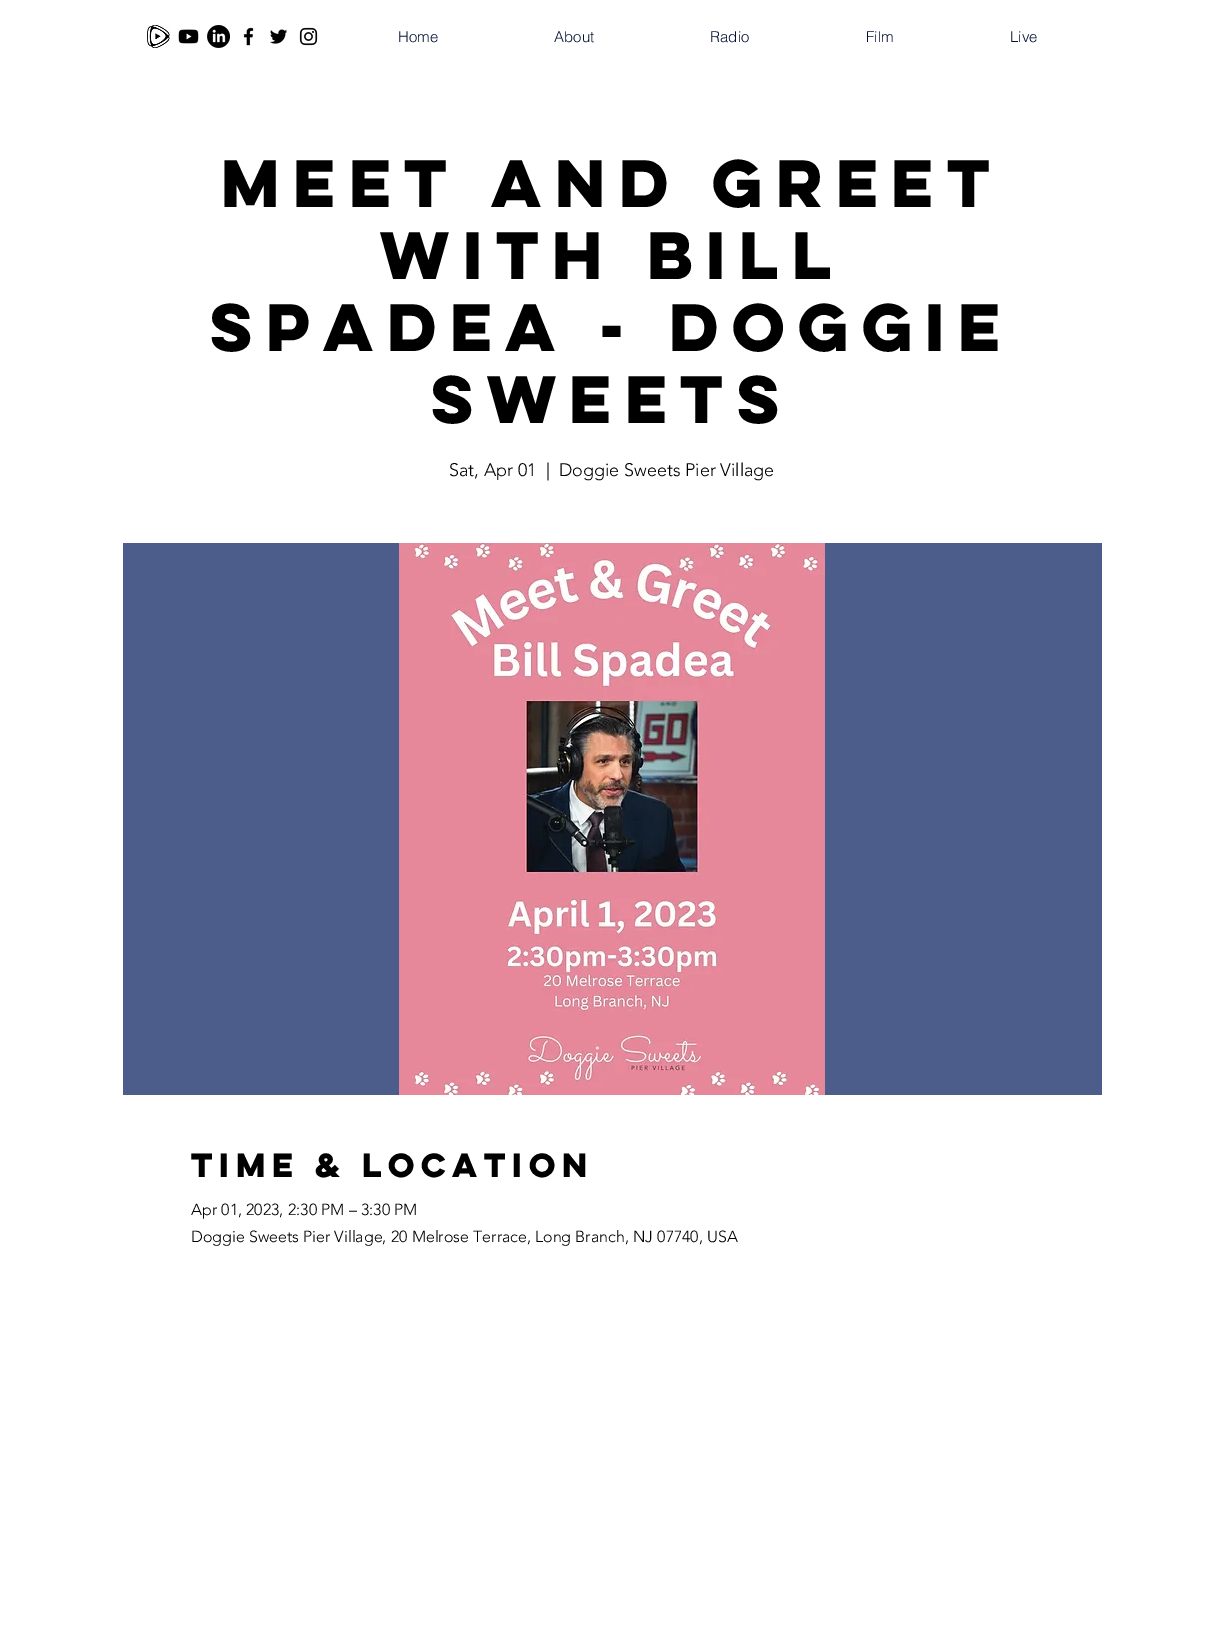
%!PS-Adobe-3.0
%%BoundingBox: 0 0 1224 1650
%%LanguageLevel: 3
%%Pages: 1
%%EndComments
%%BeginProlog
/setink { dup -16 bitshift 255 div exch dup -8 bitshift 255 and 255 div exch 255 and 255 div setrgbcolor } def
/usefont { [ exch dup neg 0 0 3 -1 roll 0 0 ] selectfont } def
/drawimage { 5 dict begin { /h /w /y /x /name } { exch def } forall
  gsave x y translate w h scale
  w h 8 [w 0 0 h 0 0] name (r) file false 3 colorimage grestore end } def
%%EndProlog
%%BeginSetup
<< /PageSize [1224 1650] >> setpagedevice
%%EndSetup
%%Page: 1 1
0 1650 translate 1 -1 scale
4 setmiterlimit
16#FFFFFF setink
0 0 1224 1650 rectfill
(img1.raw) 147 25 23 23 drawimage
(img2.raw) 178 29 21 15 drawimage
(img3.raw) 207 25 23 23 drawimage
(img4.raw) 243 27 11 19 drawimage
(img5.raw) 270 29 18 15 drawimage
(img6.raw) 299 27 19 19 drawimage
/helvetica-Light 15 usefont
16#041133 setink
[
    [(Home) 398 42]
    [(About) 554 42]
    [(Radio) 710 42]
    [(Film) 866 42]
    [(Live) 1010 42]
] { aload pop moveto show } forall
/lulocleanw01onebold-Bold 60 usefont
16#000000 setink
[
    [(Meet and Greet) 221 207]
    [(with Bill) 380 279]
    [(Spadea - Doggie) 210 351]
    [(Sweets) 431 423]
] { aload pop moveto show } forall
/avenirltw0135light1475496-Light 18 usefont
[
    [(Sat, Apr 01) 449 476]
    [(|) 546 476]
    [(Doggie Sweets Pier Village) 559 476]
] { aload pop moveto show } forall
16#4C5D8C setink
123 543 979 552 rectfill
(img7.raw) 399 543 426 552 drawimage
/lulocleanw01onebold-Bold 30 usefont
16#000000 setink
191 1177 moveto (Time & Location) show
/avenirltw0135light1475496-Light 16 usefont
191 1215 moveto (Apr 01, 2023, 2:30 PM – 3:30 PM) show
191 1242 moveto (Doggie Sweets Pier Village, 20 Melrose Terrace, Long Branch, NJ 07740, USA) show
showpage
%%EOF
